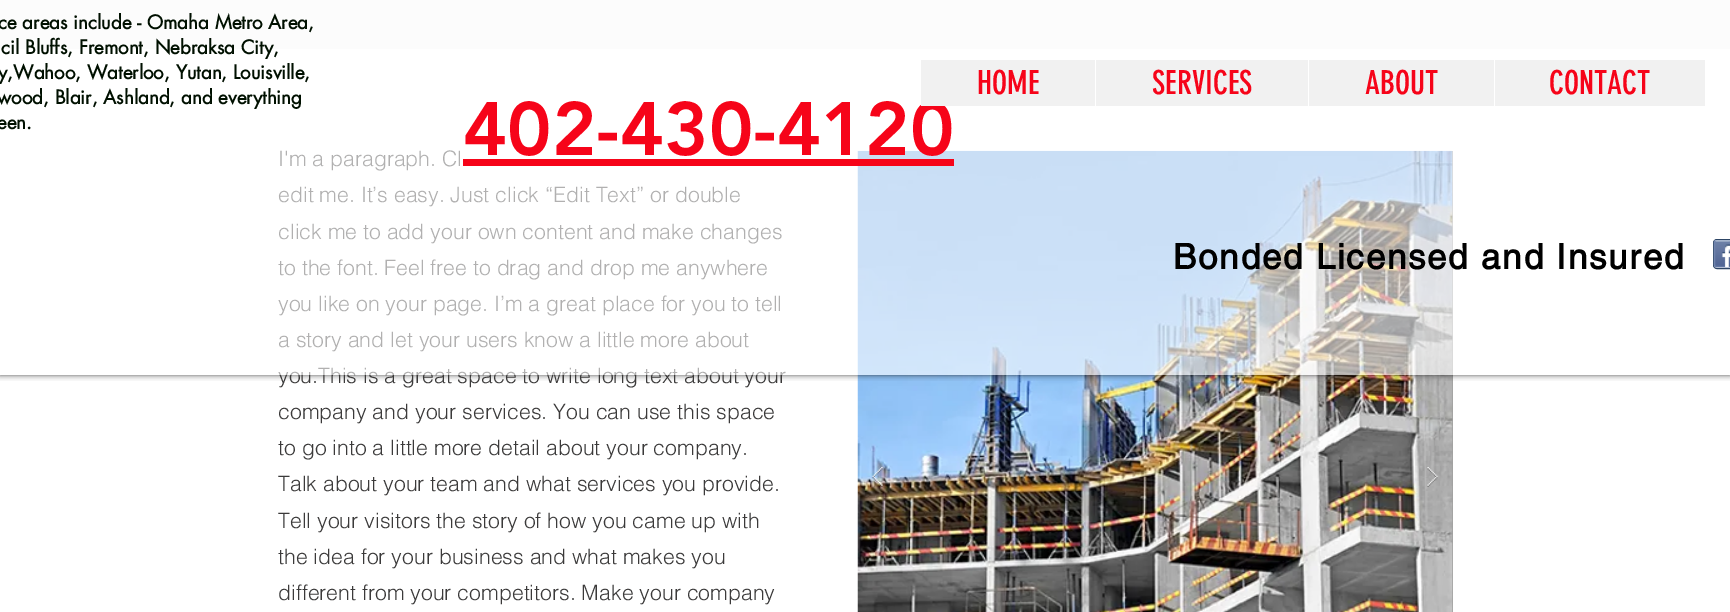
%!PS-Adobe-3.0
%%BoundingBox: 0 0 1730 612
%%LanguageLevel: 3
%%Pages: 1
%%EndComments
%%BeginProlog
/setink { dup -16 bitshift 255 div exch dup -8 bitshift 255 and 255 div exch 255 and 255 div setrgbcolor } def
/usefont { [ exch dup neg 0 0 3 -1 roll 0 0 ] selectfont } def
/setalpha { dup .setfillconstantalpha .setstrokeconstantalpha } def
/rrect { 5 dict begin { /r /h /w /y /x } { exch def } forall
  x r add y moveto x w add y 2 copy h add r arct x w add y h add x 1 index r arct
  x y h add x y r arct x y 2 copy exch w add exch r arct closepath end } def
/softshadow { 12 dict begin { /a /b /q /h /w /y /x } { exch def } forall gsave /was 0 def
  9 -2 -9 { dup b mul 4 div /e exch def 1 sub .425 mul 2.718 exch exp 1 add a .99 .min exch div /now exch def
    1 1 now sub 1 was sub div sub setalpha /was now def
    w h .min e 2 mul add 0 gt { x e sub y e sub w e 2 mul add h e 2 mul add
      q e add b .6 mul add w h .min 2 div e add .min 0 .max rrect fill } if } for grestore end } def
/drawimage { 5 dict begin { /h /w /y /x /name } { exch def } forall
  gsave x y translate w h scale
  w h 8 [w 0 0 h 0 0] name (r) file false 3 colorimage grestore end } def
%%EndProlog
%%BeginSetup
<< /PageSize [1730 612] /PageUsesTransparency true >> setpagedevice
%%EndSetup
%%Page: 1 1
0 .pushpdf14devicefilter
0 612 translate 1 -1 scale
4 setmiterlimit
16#F7F7F7 setink
0 0 1730 612 rectfill
16#FFFFFF setink
0 49 1730 563 rectfill
16#A0A09F setink
1452 151 1 461 rectfill
(img3.raw) 857 150 596 462 drawimage
gsave
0 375 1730 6 rectclip
16#000000 setink
0 0 1730 375 0 3 0.7 softshadow
grestore
/helvetica-Light 21.25 usefont
16#3B3A3A setink
[
    [(I'm a paragraph. Cl) 278 166]
    [(edit me. It’s easy. Just click “Edit Text” or double) 278 202]
    [(click me to add your own content and make changes) 278 239]
    [(to the font. Feel free to drag and drop me anywhere) 278 275]
    [(you like on your page. I’m a great place for you to tell) 278 311]
    [(a story and let your users know a little more about) 278 347]
    [(you.This is a great space to write long text about your) 278 383]
] { aload pop moveto show } forall
0.6 setalpha
16#FFFFFF setink
0 0 1730 375 rectfill
/futura-Bold 18.75 usefont
1 setalpha
16#001000 setink
[
    [(ce areas include - Omaha Metro Area,) -2 29]
    [(cil Bluffs, Fremont, Nebraksa City,) 1 54]
    [(y,Wahoo, Waterloo, Yutan, Louisville,) -2 79]
    [(wood, Blair, Ashland, and everything) -3 104]
    [(een.) -3 129]
] { aload pop moveto show } forall
/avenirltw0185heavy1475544-Black 75 usefont
16#F60419 setink
463 155 moveto (402-430-4120) show
463 159 491 7 rectfill
/helvetica-Bold 35 usefont
16#000000 setink
1173 269 moveto 1.75 0 (Bonded Licensed and Insured) ashow
16#2D4565 setink
1713.5 239.5 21 29 3.5 rrect stroke
(img1.raw) 1714 240 16 28 drawimage
16#9AABC6 setink
1.2 setlinewidth
1715 241 moveto 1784 240.5 lineto 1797.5 240.5 lineto 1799 241 lineto stroke
16#6176A3 setink
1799 266.5 moveto 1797.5 267 lineto 1715 266.5 lineto stroke
16#6F83AD setink
1715 266.5 moveto 1714.5 265 lineto 1714.5 242.5 lineto 1715 241 lineto stroke
(img2.raw) 1721 244 9 23 drawimage
16#F1F1F1 setink
921 60 784 46 rectfill
/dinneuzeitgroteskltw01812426-Regular 32.5 usefont
16#F60419 setink
977 94 moveto (HOME) show
16#FFFFFF setink
1095 60 1 46 rectfill
16#F60419 setink
1152 94 moveto (SERVICES) show
16#FFFFFF setink
1308 60 1 46 rectfill
16#F60419 setink
1365 94 moveto (ABOUT) show
16#FFFFFF setink
1494 60 1 46 rectfill
16#F60419 setink
1549 94 moveto (CONTACT) show
/helvetica-Light 21.25 usefont
16#3B3A3A setink
[
    [(company and your services. You can use this space) 278 419]
    [(to go into a little more detail about your company.) 278 455]
    [(Talk about your team and what services you provide.) 278 491]
    [(Tell your visitors the story of how you came up with) 278 528]
    [(the idea for your business and what makes you) 278 564]
    [(different from your competitors. Make your company) 278 600]
] { aload pop moveto show } forall
(img4.raw) 872 467 11 20 drawimage
(img5.raw) 1427 467 11 20 drawimage
.poppdf14devicefilter showpage
%%EOF
